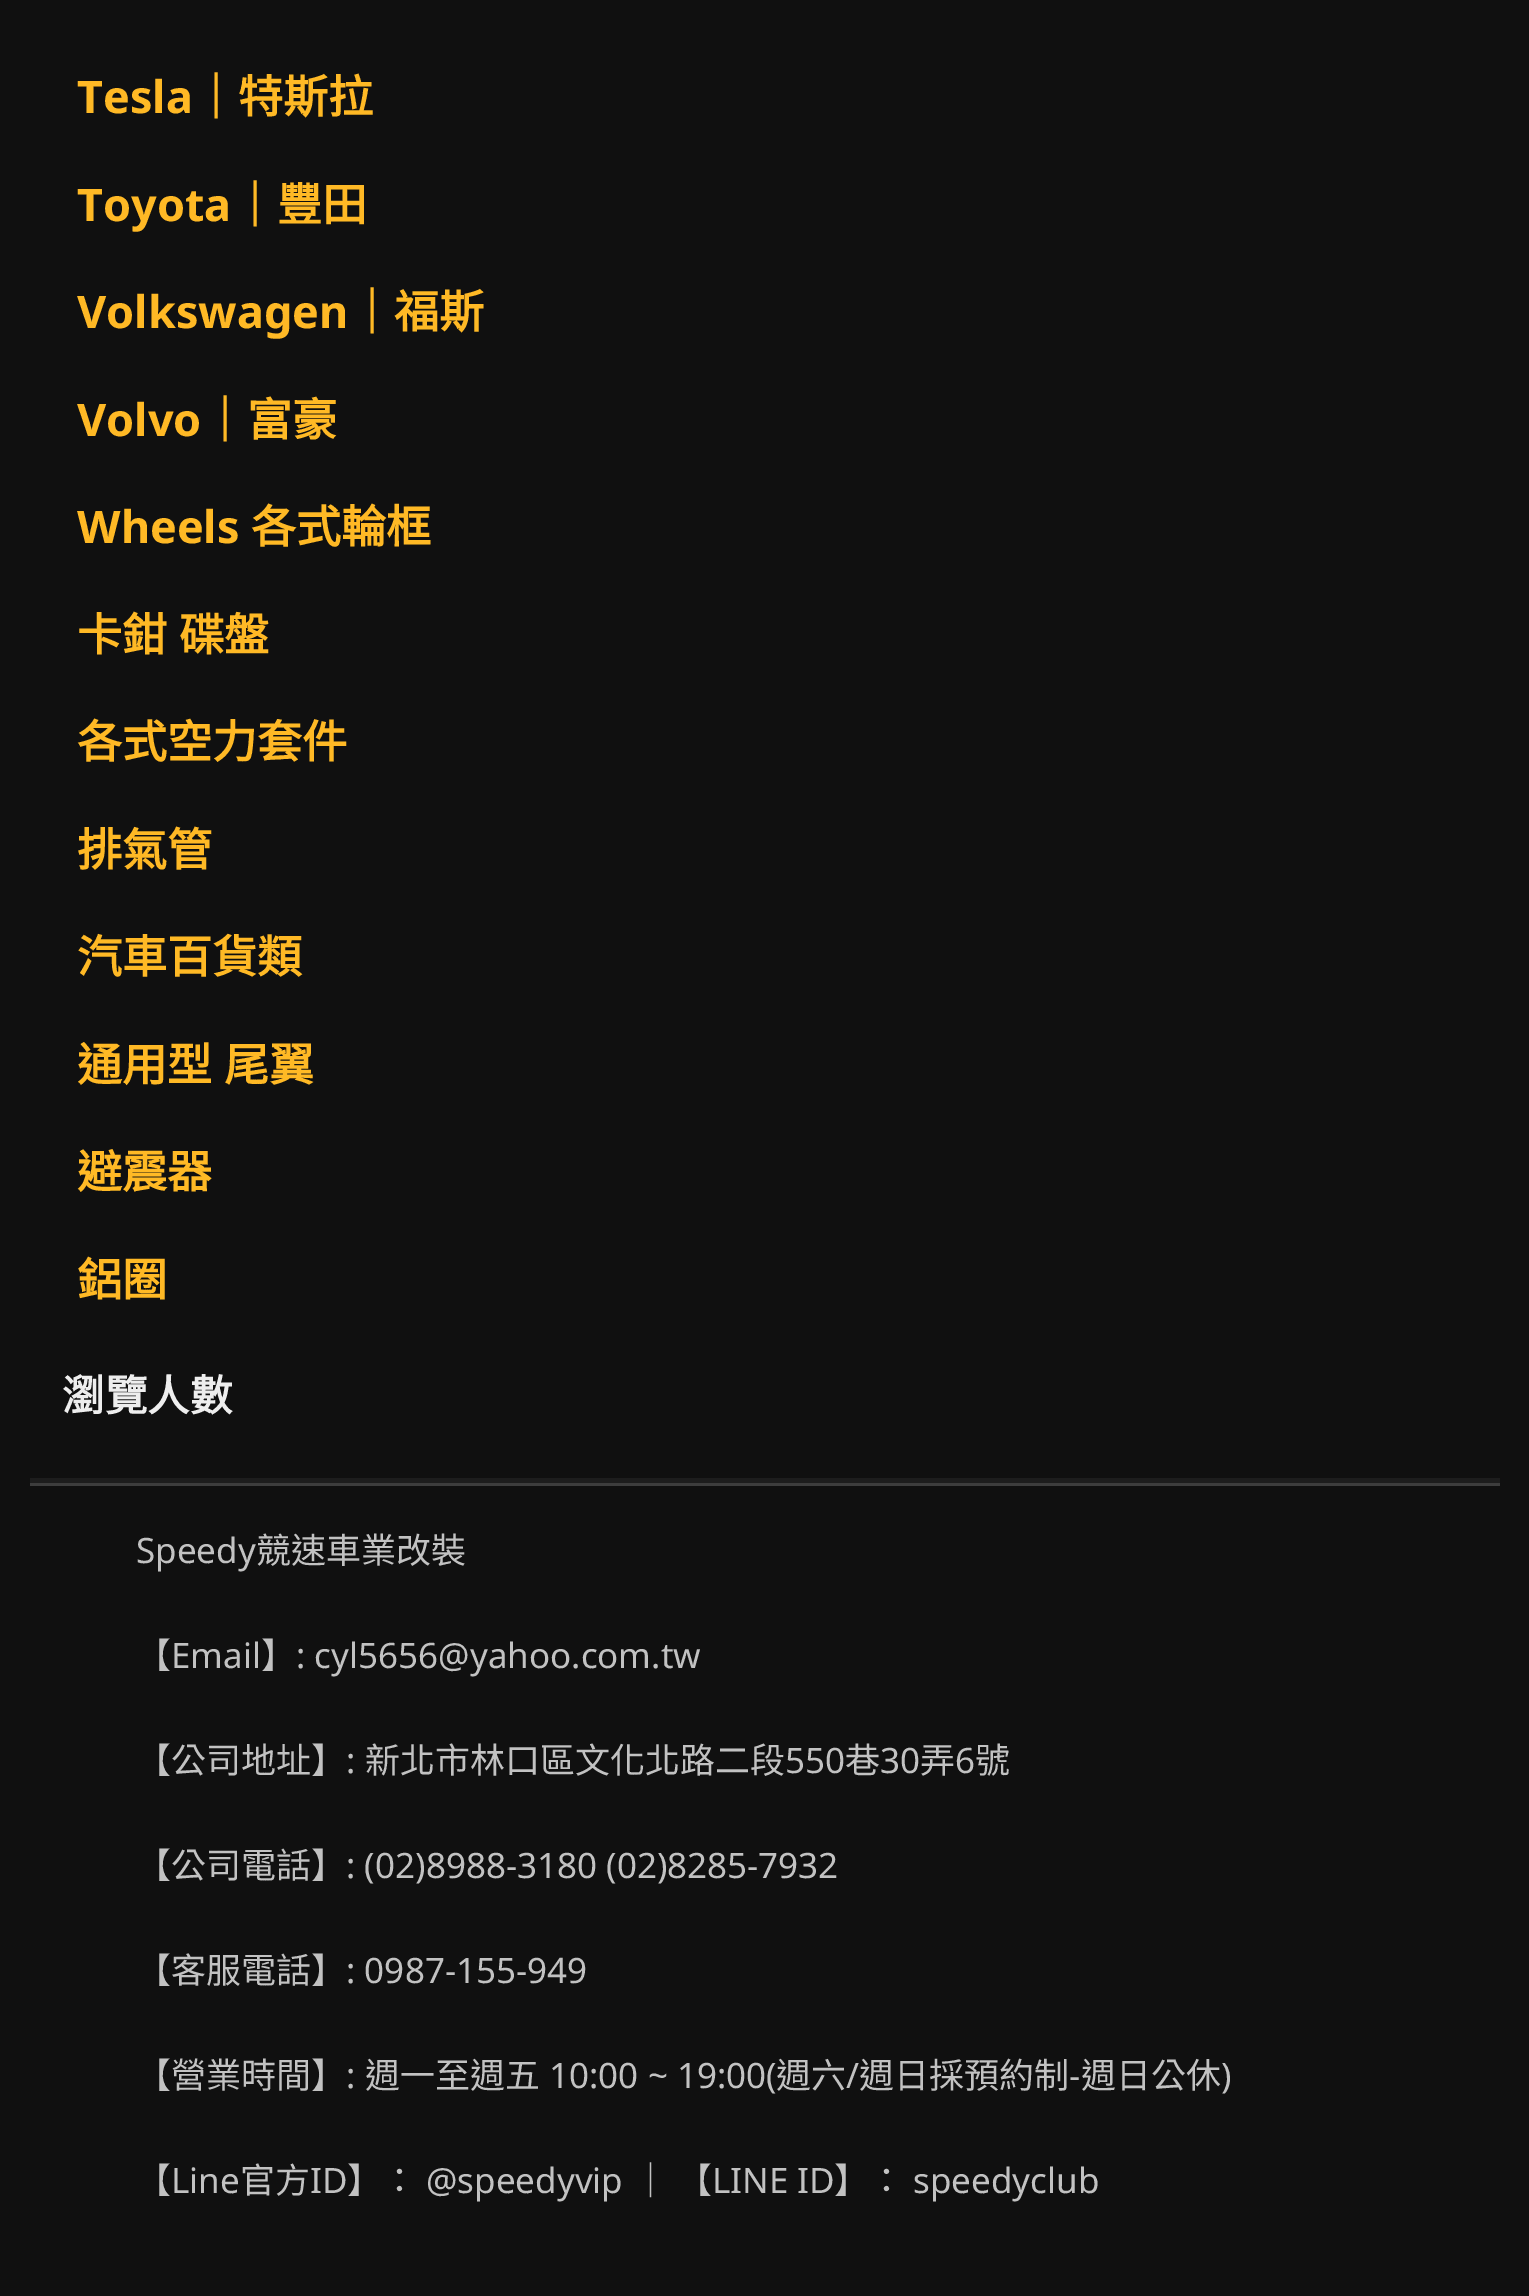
%!PS-Adobe-3.0
%%BoundingBox: 0 0 1529 2296
%%LanguageLevel: 3
%%Pages: 1
%%EndComments
%%BeginProlog
/setink { dup -16 bitshift 255 div exch dup -8 bitshift 255 and 255 div exch 255 and 255 div setrgbcolor } def
/usefont { [ exch dup neg 0 0 3 -1 roll 0 0 ] selectfont } def
%%EndProlog
%%BeginSetup
<< /PageSize [1529 2296] >> setpagedevice
%%EndSetup
%%Page: 1 1
0 2296 translate 1 -1 scale
4 setmiterlimit
16#101010 setink
0 0 1529 2296 rectfill
/NotoSans-Bold 45 usefont
16#FFB925 setink
77 113 moveto (Tesla) show
/NotoSansCJKTC-Bold 45 usefont
193 113 moveto (｜特斯拉) show
/NotoSans-Bold 45 usefont
77 221 moveto (Toyota) show
/NotoSansCJKTC-Bold 45 usefont
232 221 moveto (｜豐田) show
/NotoSans-Bold 45 usefont
77 328 moveto (Volkswagen) show
/NotoSansCJKTC-Bold 45 usefont
349 328 moveto (｜福斯) show
/NotoSans-Bold 45 usefont
77 436 moveto (Volvo) show
/NotoSansCJKTC-Bold 45 usefont
202 436 moveto (｜富豪) show
/NotoSans-Bold 45 usefont
77 543 moveto (Wheels) show
/NotoSansCJKTC-Bold 45 usefont
251 543 moveto (各式輪框) show
77 651 moveto 2 0 32 (卡鉗 碟盤) widthshow
[
    [(各式空力套件) 77 758]
    [(排氣管) 77 866]
    [(汽車百貨類) 77 973]
] { aload pop moveto show } forall
77 1081 moveto 2 0 32 (通用型 尾翼) widthshow
77 1188 moveto (避震器) show
77 1296 moveto (鋁圈) show
/NotoSansCJKTC-Bold 42.5 usefont
16#EEEEEE setink
62 1411 moveto (瀏覽人數) show
16#3D3D3D setink
30 1483 1470 3 rectfill
16#1D1D1D setink
30 1478 1470 5 rectfill
/NotoSans-Regular 35 usefont
16#C2C2C2 setink
136 1563 moveto (Speedy) show
/NotoSansCJKTC-Regular 35 usefont
256 1563 moveto (競速車業改裝) show
136 1668 moveto (【) show
/NotoSans-Regular 35 usefont
171 1668 moveto (Email) show
/NotoSansCJKTC-Regular 35 usefont
261 1668 moveto (】) show
/NotoSans-Regular 35 usefont
296 1668 moveto (: cyl5656@yahoo.com.tw) show
/NotoSansCJKTC-Regular 35 usefont
136 1773 moveto (【公司地址】) show
/NotoSans-Regular 35 usefont
346 1773 moveto (:) show
/NotoSansCJKTC-Regular 35 usefont
365 1773 moveto (新北市林口區文化北路二段) show
/NotoSans-Regular 35 usefont
785 1773 moveto (550) show
/NotoSansCJKTC-Regular 35 usefont
845 1773 moveto (巷) show
/NotoSans-Regular 35 usefont
880 1773 moveto (30) show
/NotoSansCJKTC-Regular 35 usefont
920 1773 moveto (弄) show
/NotoSans-Regular 35 usefont
955 1773 moveto (6) show
/NotoSansCJKTC-Regular 35 usefont
975 1773 moveto (號) show
136 1878 moveto (【公司電話】) show
/NotoSans-Regular 35 usefont
346 1878 moveto (: \(02\)8988-3180 \(02\)8285-7932) show
/NotoSansCJKTC-Regular 35 usefont
136 1983 moveto (【客服電話】) show
/NotoSans-Regular 35 usefont
346 1983 moveto (: 0987-155-949) show
/NotoSansCJKTC-Regular 35 usefont
136 2088 moveto (【營業時間】) show
/NotoSans-Regular 35 usefont
346 2088 moveto (:) show
/NotoSansCJKTC-Regular 35 usefont
365 2088 moveto (週一至週五) show
/NotoSans-Regular 35 usefont
549 2088 moveto (10:00 ~ 19:00\() show
/NotoSansCJKTC-Regular 35 usefont
776 2088 moveto (週六) show
/NotoSans-Regular 35 usefont
846 2088 moveto (/) show
/NotoSansCJKTC-Regular 35 usefont
859 2088 moveto (週日採預約制) show
/NotoSans-Regular 35 usefont
1069 2088 moveto (-) show
/NotoSansCJKTC-Regular 35 usefont
1081 2088 moveto (週日公休) show
/NotoSans-Regular 35 usefont
1221 2088 moveto (\)) show
/NotoSansCJKTC-Regular 35 usefont
136 2193 moveto (【) show
/NotoSans-Regular 35 usefont
171 2193 moveto (Line) show
/NotoSansCJKTC-Regular 35 usefont
240 2193 moveto (官方) show
/NotoSans-Regular 35 usefont
310 2193 moveto (ID) show
/NotoSansCJKTC-Regular 35 usefont
347 2193 moveto (】：) show
/NotoSans-Regular 35 usefont
426 2193 moveto (@speedyvip) show
/NotoSansCJKTC-Regular 35 usefont
633 2193 moveto (｜) show
677 2193 moveto (【) show
/NotoSans-Regular 35 usefont
712 2193 moveto (LINE ID) show
/NotoSansCJKTC-Regular 35 usefont
834 2193 moveto (】：) show
/NotoSans-Regular 35 usefont
913 2193 moveto (speedyclub) show
showpage
%%EOF
